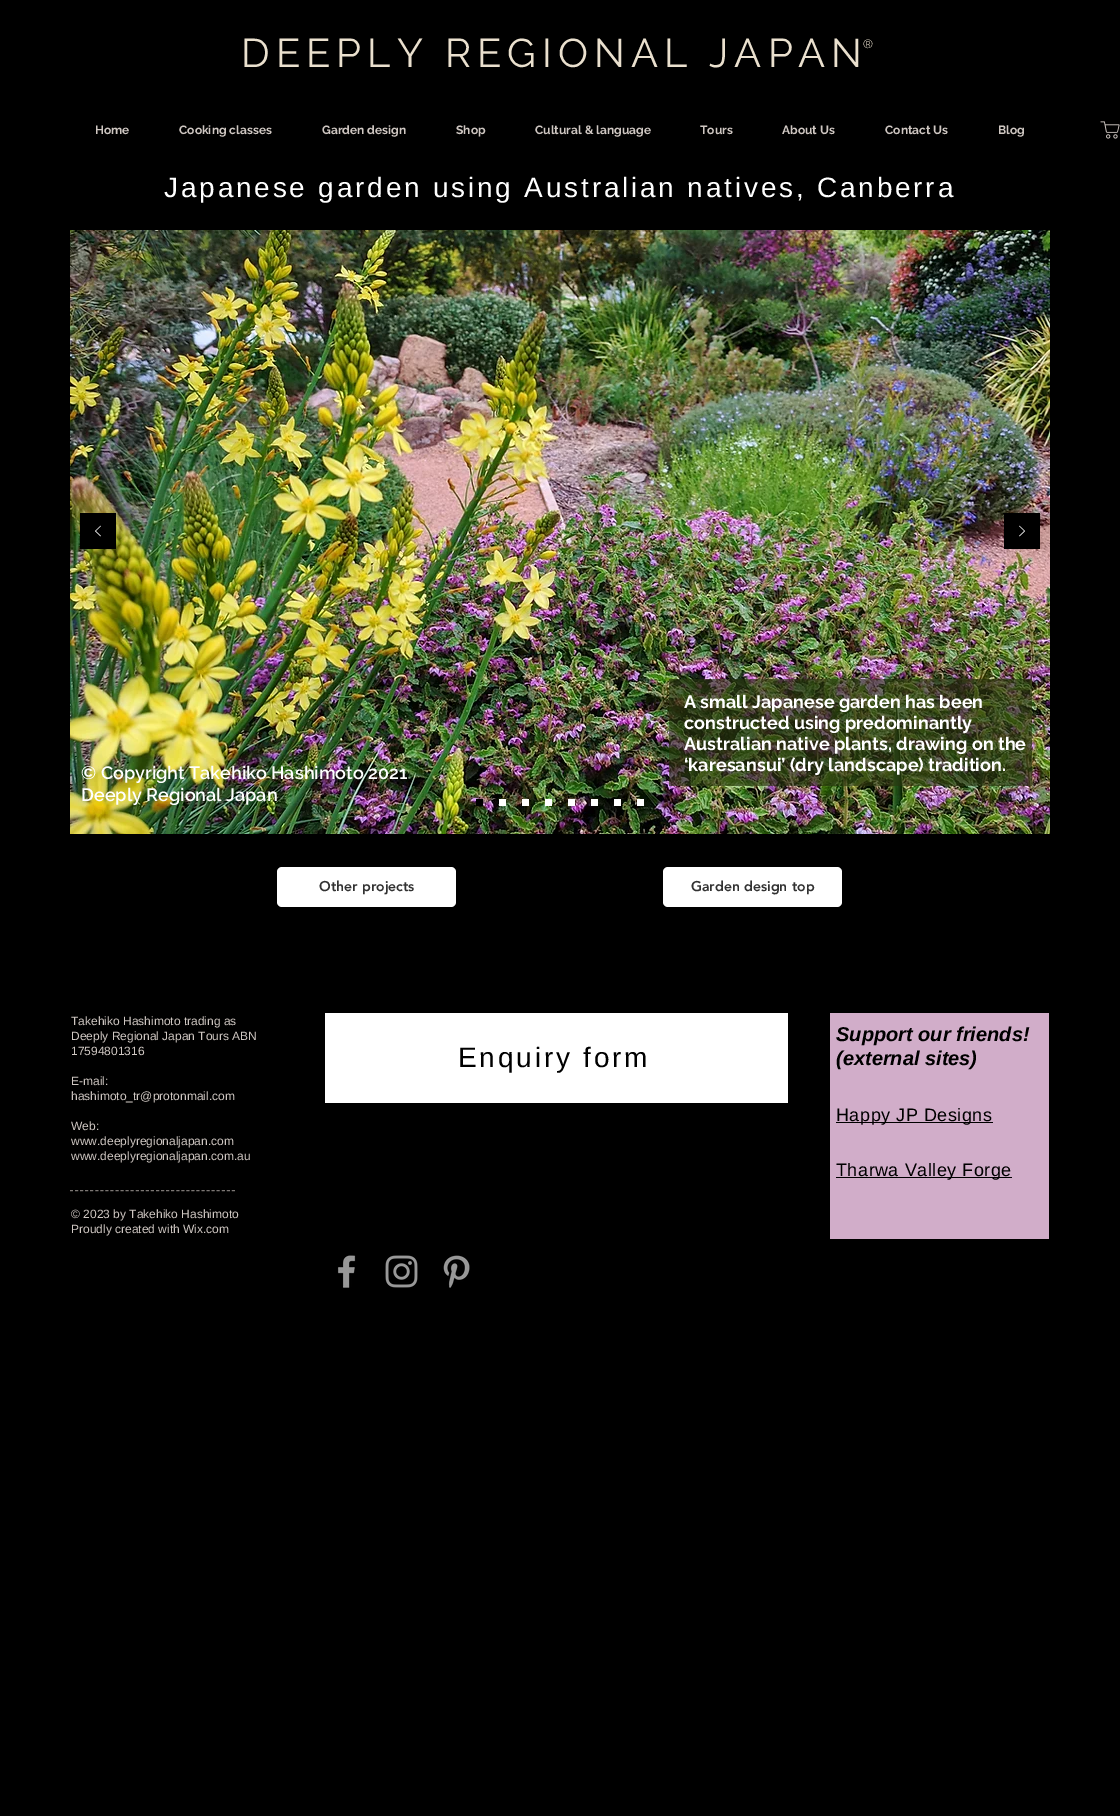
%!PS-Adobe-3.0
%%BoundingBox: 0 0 1120 1816
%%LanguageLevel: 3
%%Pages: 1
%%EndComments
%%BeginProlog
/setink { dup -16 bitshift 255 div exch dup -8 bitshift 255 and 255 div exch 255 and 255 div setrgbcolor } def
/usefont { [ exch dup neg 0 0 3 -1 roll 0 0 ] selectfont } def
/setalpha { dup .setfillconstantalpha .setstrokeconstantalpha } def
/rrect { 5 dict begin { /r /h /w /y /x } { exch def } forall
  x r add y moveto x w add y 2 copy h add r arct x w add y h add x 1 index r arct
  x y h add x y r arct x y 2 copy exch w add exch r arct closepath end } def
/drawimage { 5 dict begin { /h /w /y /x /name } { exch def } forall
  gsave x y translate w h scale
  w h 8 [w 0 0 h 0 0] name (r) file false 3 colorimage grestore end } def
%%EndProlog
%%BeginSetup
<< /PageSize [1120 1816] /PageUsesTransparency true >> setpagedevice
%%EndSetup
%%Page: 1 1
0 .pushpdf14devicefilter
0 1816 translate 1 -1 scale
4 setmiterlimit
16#000000 setink
0 0 1120 1816 rectfill
/Raleway-Regular 40 usefont
16#EAE0CE setink
241 67 moveto 6 0 (DEEPLY REGIONAL JAPAN) ashow
/Raleway-Regular 12 usefont
863 48 moveto 2 0 (®) ashow
/Raleway-Bold 12 usefont
16#CFC7C2 setink
[
    [(Home) 95 134]
    [(Cooking classes) 179 134]
    [(Garden design) 322 134]
    [(Shop) 456 134]
    [(Cultural & language) 535 134]
    [(Tours) 700 134]
    [(About Us) 782 134]
    [(Contact Us) 885 134]
    [(Blog) 998 134]
] { aload pop moveto show } forall
(img1.raw) 1100 121 20 18 drawimage
/LiberationSans-Regular 28 usefont
16#FFFFFF setink
164 197 moveto 2.8 0 (Japanese garden using Australian natives, Canberra) ashow
(img4.raw) 70 230 980 604 drawimage
(img2.raw) 80 513 36 36 drawimage
(img3.raw) 1004 513 36 36 drawimage
0.63 setalpha
16#28330F setink
669 679 363 107 rectfill
/Raleway-Bold 18 usefont
1 setalpha
16#FFFFFF setink
[
    [(A small Japanese garden has been) 684 708]
    [(constructed using predominantly) 684 729]
    [(Australian native plants, drawing on the) 684 750]
    [(‘karesansui’ \(dry landscape\) tradition.) 684 771]
] { aload pop moveto show } forall
[
    [476 799 7 7 16#000000]
    [499 799 7 7 16#FFFFFF]
    [522 799 7 7 16#FFFFFF]
    [545 799 7 7 16#FFFFFF]
    [568 799 7 7 16#FFFFFF]
    [591 799 7 7 16#FFFFFF]
    [614 799 7 7 16#FFFFFF]
    [637 799 7 7 16#FFFFFF]
] { aload pop setink rectfill } forall
/Raleway-SemiBold 18 usefont
81 779 moveto (© Copyright Takehiko Hashimoto 2021) show
81 801 moveto (Deeply Regional Japan) show
277 867 179 40 5 rrect fill
/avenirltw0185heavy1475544-Black 14 usefont
16#323232 setink
319 891 moveto (Other projects) show
16#FFFFFF setink
663 867 179 40 5 rrect fill
16#323232 setink
691 891 moveto (Garden design top) show
/LiberationSans-Regular 12 usefont
16#CFC7C2 setink
[
    [(Takehiko Hashimoto trading as) 71 1025]
    [(Deeply Regional Japan Tours ABN) 71 1040]
    [(17594801316) 71 1055]
    [(E-mail:) 71 1085]
    [(hashimoto_tr@protonmail.com) 71 1100]
    [(Web:) 71 1130]
    [(www.deeplyregionaljapan.com) 71 1145]
    [(www.deeplyregionaljapan.com.au) 71 1160]
] { aload pop moveto show } forall
16#7C7774 setink
[3 2.06] 0 setdash
70 1190.5 moveto 235 1190.5 lineto stroke
16#CFC7C2 setink
71 1218 moveto (© 2023 by Takehiko Hashimoto) show
71 1233 moveto (Proudly created with Wix.com) show
16#FFFFFF setink
325 1013 463 90 rectfill
/LiberationSans-Regular 28 usefont
16#000000 setink
458 1067 moveto 2.8 0 (Enquiry form) ashow
16#D1ADC9 setink
830 1013 219 226 rectfill
/LiberationSans-BoldItalic 20 usefont
16#000000 setink
836 1041 moveto (Support our friends!) show
836 1065 moveto (\(external sites\)) show
836 1122 157 1 rectfill
/LiberationSans-Regular 18 usefont
836 1121 moveto 0.5 0 (Happy JP Designs) ashow
836 1177 176 1 rectfill
836 1176 moveto 0.5 0 (Tharwa Valley Forge) ashow
(img5.raw) 337 1255 19 33 drawimage
(img6.raw) 385 1255 33 33 drawimage
(img7.raw) 443 1255 27 33 drawimage
.poppdf14devicefilter showpage
%%EOF
